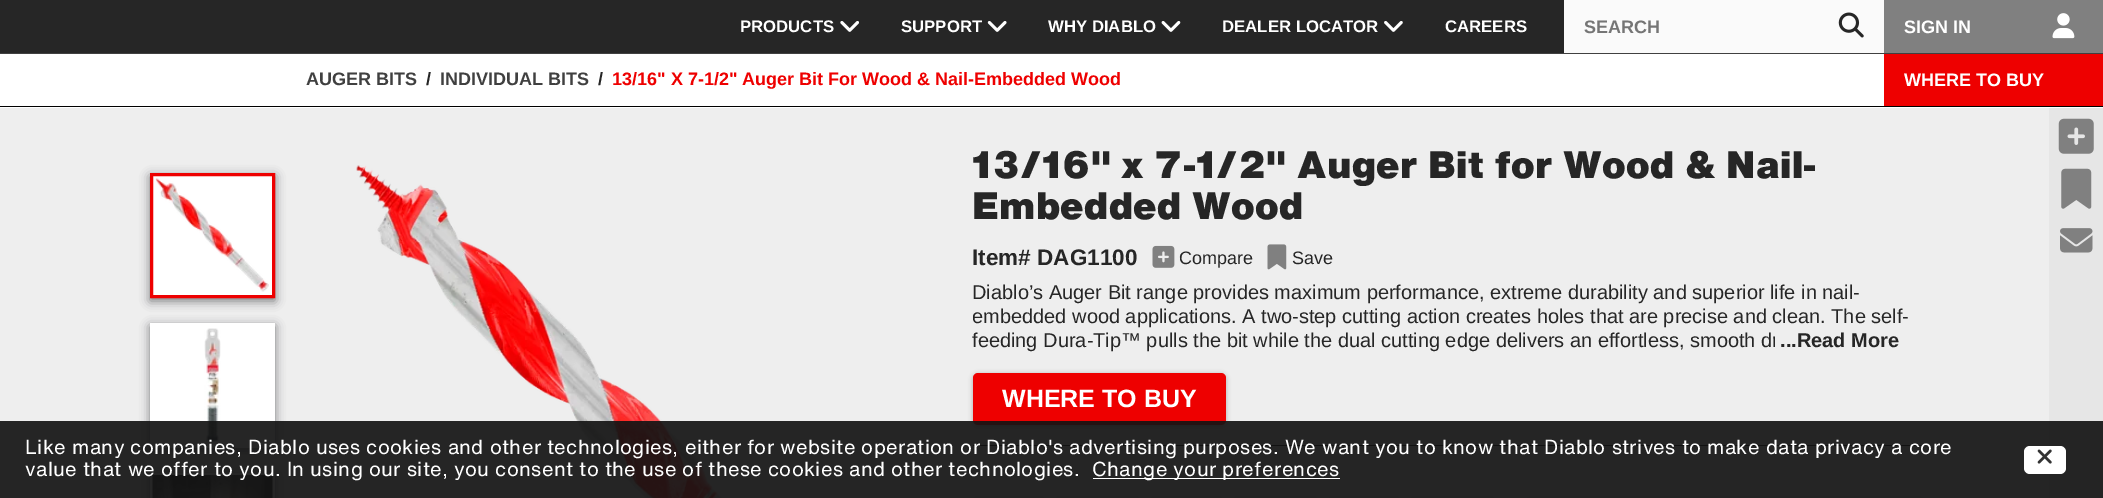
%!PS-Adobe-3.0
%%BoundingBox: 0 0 2103 498
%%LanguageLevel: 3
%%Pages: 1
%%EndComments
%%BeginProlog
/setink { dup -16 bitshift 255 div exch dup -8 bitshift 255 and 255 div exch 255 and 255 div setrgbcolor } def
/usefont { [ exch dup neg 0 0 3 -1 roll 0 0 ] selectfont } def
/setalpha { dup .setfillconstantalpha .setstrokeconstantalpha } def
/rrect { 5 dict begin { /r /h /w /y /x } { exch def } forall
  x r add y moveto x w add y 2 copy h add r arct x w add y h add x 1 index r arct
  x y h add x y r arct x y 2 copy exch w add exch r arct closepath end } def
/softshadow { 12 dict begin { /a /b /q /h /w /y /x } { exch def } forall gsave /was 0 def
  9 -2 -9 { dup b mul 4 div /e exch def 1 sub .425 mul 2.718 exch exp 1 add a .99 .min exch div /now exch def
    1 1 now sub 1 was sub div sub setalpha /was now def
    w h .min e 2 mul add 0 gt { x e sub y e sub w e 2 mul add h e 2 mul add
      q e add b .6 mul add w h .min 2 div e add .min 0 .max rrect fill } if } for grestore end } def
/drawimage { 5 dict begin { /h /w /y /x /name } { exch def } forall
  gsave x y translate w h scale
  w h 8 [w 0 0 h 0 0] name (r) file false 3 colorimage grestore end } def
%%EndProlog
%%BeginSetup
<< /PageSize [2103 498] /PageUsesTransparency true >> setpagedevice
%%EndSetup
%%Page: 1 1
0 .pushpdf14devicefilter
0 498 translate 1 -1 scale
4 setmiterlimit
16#EEEEEE setink
0 0 2103 498 rectfill
16#262626 setink
0 0 1564 53 rectfill
16#404040 setink
0 53 2103 1 rectfill
/LiberationSans-Bold 16.75 usefont
16#FFFFFF setink
740 32 moveto (PRODUCTS) show
(img1.raw) 840 21 19 11 drawimage
901 32 moveto (SUPPORT) show
(img2.raw) 987 21 20 11 drawimage
1048 32 moveto (WHY DIABLO) show
(img3.raw) 1161 21 20 11 drawimage
1222 32 moveto (DEALER LOCATOR) show
(img4.raw) 1384 21 19 11 drawimage
1445 32 moveto (CAREERS) show
16#FAFAFA setink
1564 0 320 53 rectfill
/LiberationSans-Bold 18 usefont
16#757575 setink
1584 33 moveto (SEARCH) show
(img5.raw) 1838 12 26 26 drawimage
16#808080 setink
1884 0 219 53 rectfill
16#FFFFFF setink
1904 33 moveto (SIGN IN) show
(img6.raw) 2052 13 23 26 drawimage
0 54 2103 54 rectfill
16#000000 setink
0 106 2103 1 rectfill
16#404040 setink
306 85 moveto (AUGER BITS) show
16#262626 setink
426 85 moveto (/) show
16#404040 setink
440 85 moveto (INDIVIDUAL BITS) show
16#262626 setink
598 85 moveto (/) show
16#EE0000 setink
612 85 moveto (13/16" X 7-1/2" Auger Bit For Wood & Nail-Embedded Wood) show
1884 54 219 52 rectfill
16#FFFFFF setink
1904 86 moveto (WHERE TO BUY) show
16#020405 setink
150 326 125 125 0 5 0.5 softshadow
16#FFFFFF setink
150 323 125 125 rectfill
(img9.raw) 204 328 17 114 drawimage
16#020405 setink
150 476 125 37 0 5 0.5 softshadow
16#FFFFFF setink
150 473 125 25 rectfill
(img10.raw) 152 475 121 23 drawimage
(img11.raw) 356 165 366 333 drawimage
16#000000 setink
973 445 952 1 rectfill
973 374 253 52 5 2.5 0.25 softshadow
16#EE0000 setink
973 373 253 52 5 rrect fill
16#000000 setink
973 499 72 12 5 2.5 0.25 softshadow
1055 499 85 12 5 2.5 0.25 softshadow
1150 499 73 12 5 2.5 0.25 softshadow
1233 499 85 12 5 2.5 0.25 softshadow
1328 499 72 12 5 2.5 0.25 softshadow
1410 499 85 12 5 2.5 0.25 softshadow
1525 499 400 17 10 2.5 0.25 softshadow
16#E6E6E6 setink
2049 108 54 390 rectfill
0.92 setalpha
16#141414 setink
0 421 2103 77 rectfill
/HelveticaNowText-Regular 20 usefont
1 setalpha
16#FFFFFF setink
25 454 moveto 0.35 0 (Like many companies, Diablo uses cookies and other technologies, either for website operation or Diablo's advertising purposes. We want you to know that Diablo strives to make data privacy a core) ashow
25 476 moveto 0.35 0 (value that we offer to you. In using our site, you consent to the use of these cookies and other technologies.) ashow
1093 478 247 1 rectfill
1092 476 moveto 0.35 0 (Change your preferences) ashow
2024 446 42 28 6 rrect fill
(img7.raw) 2037 449 15 15 drawimage
16#020405 setink
150 176 125 125 0 5 0.5 softshadow
16#FFFFFF setink
151.5 174.5 moveto 273.5 174.5 lineto 273.5 296.5 lineto 151.5 296.5 lineto closepath gsave fill grestore
16#EE0000 setink
3 setlinewidth
stroke
(img8.raw) 155 178 114 114 drawimage
/HelveticaNowText-Black 37.5 usefont
16#262626 setink
972 178 moveto 0.35 0 (13/16" x 7-1/2" Auger Bit for Wood & Nail-) ashow
972 219 moveto 0.35 0 (Embedded Wood) ashow
/LiberationSans-Bold 22.5 usefont
972 265 moveto (Item# DAG1100) show
(img12.raw) 1152 245 23 23 drawimage
/LiberationSans-Regular 18 usefont
1179 264 moveto (Compare) show
(img13.raw) 1267 244 20 26 drawimage
1292 264 moveto (Save) show
/LiberationSans-Regular 20 usefont
972 299 moveto (Diablo’s Auger Bit range provides maximum performance, extreme durability and superior life in nail-) show
gsave
973 275 952 78 rectclip
972 323 moveto (embedded wood applications. A two-step cutting action creates holes that are precise and clean. The self-) show
grestore
972 347 moveto (feeding Dura-Tip™ pulls the bit while the dual cutting edge delivers an effortless, smooth dr) show
16#EEEEEE setink
1775 336 4 11 rectfill
/LiberationSans-Bold 20 usefont
16#262626 setink
1780 347 moveto (...Read More) show
/LiberationSans-Bold 25 usefont
16#FFFFFF setink
1002 407 moveto (WHERE TO BUY) show
(img14.raw) 2058 118 36 36 drawimage
(img15.raw) 2061 168 31 41 drawimage
(img16.raw) 2060 228 33 25 drawimage
.poppdf14devicefilter showpage
%%EOF
